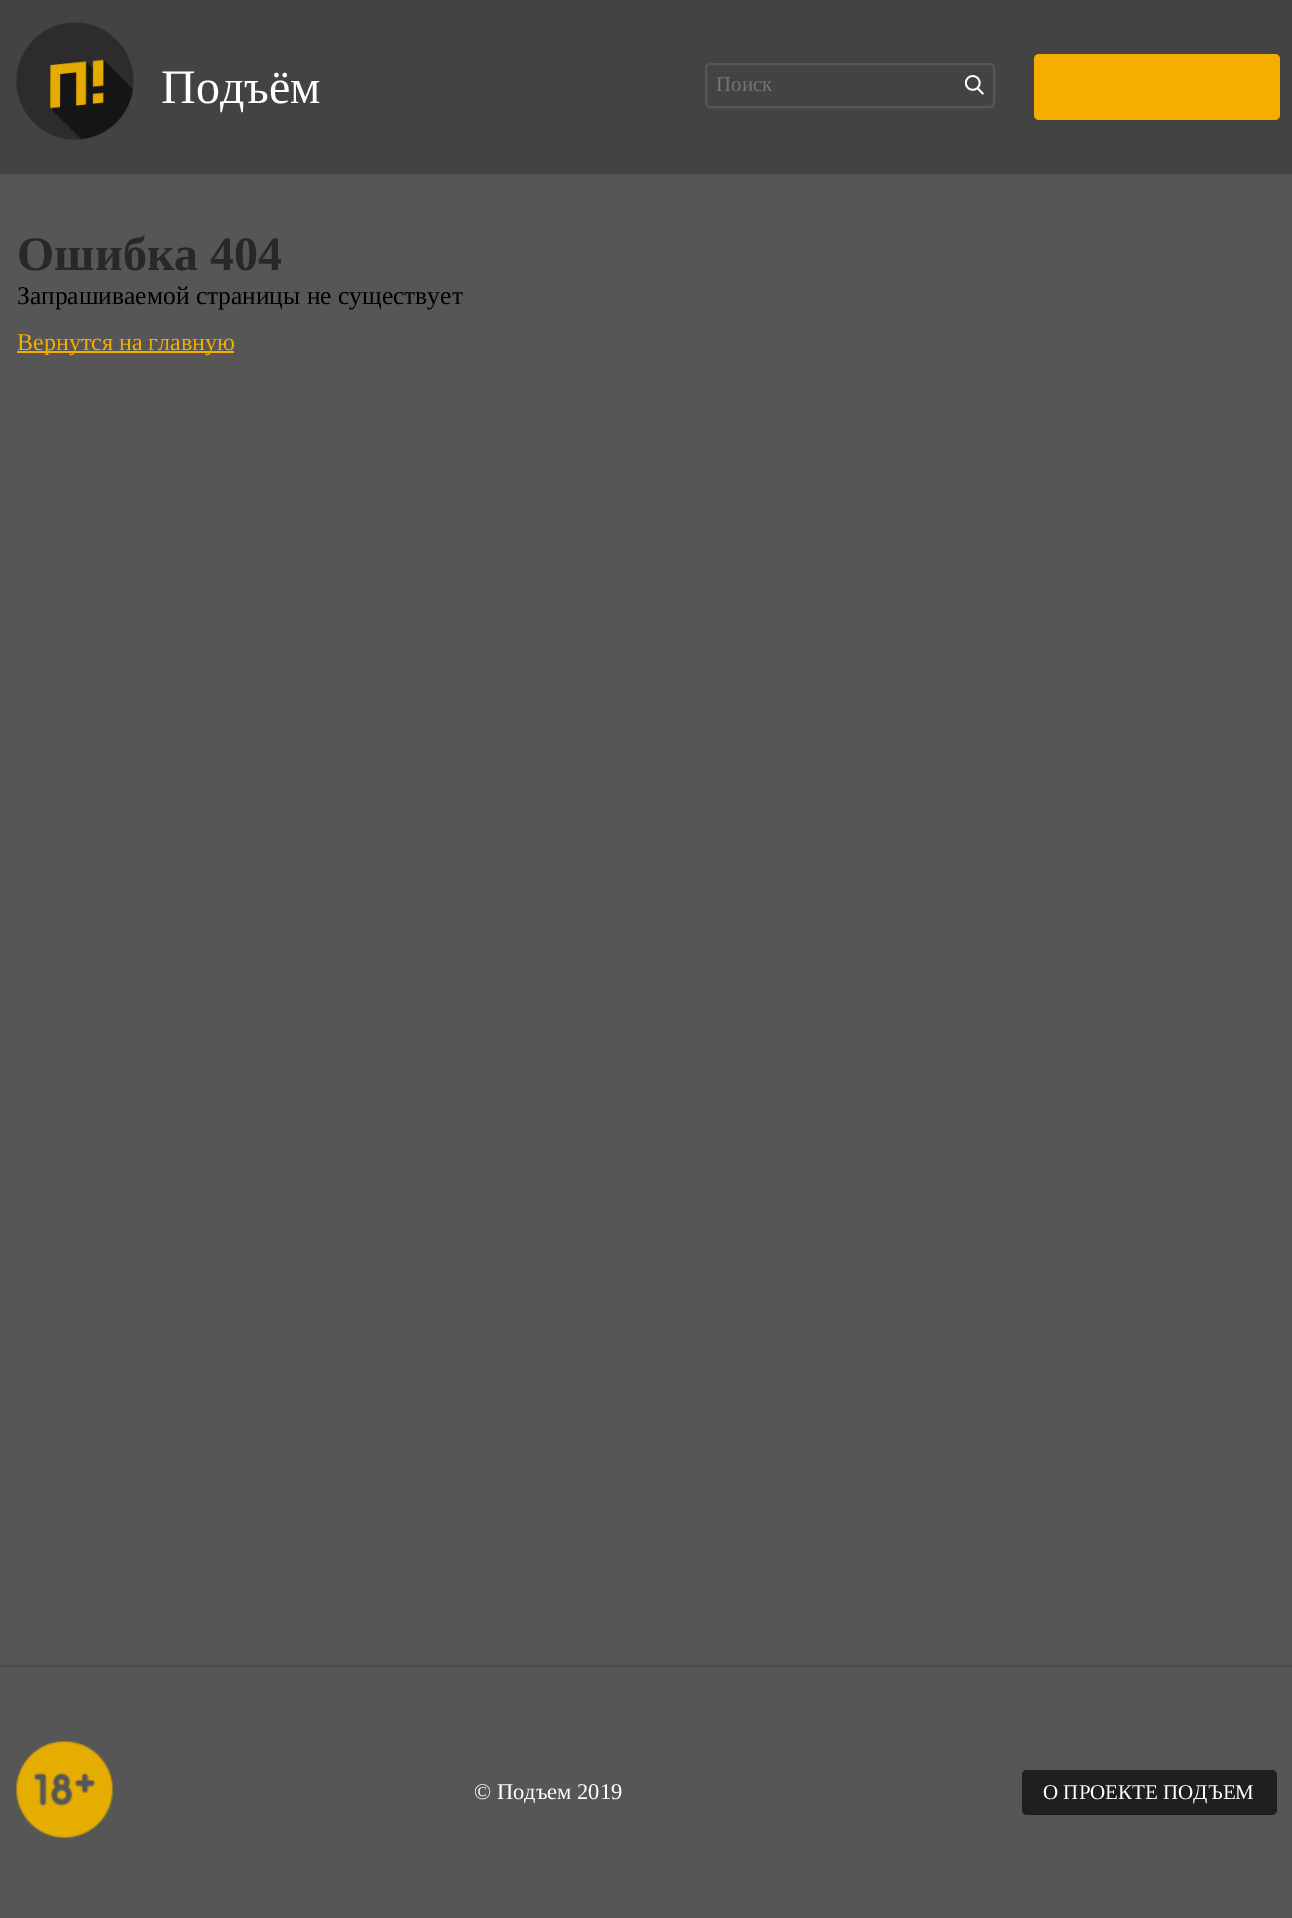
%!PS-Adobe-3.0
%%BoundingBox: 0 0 1292 1918
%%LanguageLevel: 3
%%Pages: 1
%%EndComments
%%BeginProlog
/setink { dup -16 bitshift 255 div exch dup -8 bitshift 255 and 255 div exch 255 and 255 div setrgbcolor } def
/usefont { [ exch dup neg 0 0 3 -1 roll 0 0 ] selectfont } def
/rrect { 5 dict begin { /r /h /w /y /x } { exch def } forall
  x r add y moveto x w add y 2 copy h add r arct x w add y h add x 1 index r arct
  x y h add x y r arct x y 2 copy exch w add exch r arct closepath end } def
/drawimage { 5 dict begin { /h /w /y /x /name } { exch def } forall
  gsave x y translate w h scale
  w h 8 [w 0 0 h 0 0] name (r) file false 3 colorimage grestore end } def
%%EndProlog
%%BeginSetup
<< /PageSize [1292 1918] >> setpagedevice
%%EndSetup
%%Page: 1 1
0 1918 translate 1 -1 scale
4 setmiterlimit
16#565656 setink
0 0 1292 1918 rectfill
16#434343 setink
0 0 1292 174 rectfill
(img1.raw) 16 22 118 118 drawimage
/LiberationSerif-Regular 48 usefont
16#FFFFFF setink
161 103 moveto (Подъём) show
16#565656 setink
2 setlinewidth
706 64 288 43 4 rrect stroke
/LiberationSerif-Regular 21 usefont
16#757575 setink
716 91 moveto (Поиск) show
(img2.raw) 965 75 19 20 drawimage
16#F6AD00 setink
1034 54 66 66 5 rrect fill
1094 54 66 66 5 rrect fill
1154 54 66 66 5 rrect fill
1214 54 66 66 5 rrect fill
/LiberationSerif-Bold 48 usefont
16#282829 setink
17 270 moveto (Ошибка 404) show
/LiberationSerif-Regular 25.5 usefont
16#000000 setink
17 304 moveto (Запрашиваемой страницы не существует) show
16#F6AD00 setink
17 351 217 2 rectfill
/LiberationSerif-Regular 24 usefont
17 350 moveto (Вернутся на главную) show
16#4B4B4B setink
0 1665 1292 2 rectfill
(img3.raw) 16 1741 97 97 drawimage
/LiberationSerif-Regular 22.5 usefont
16#FFFFFF setink
474 1799 moveto (© Подъем 2019) show
16#1F1F20 setink
1022 1770 255 45 5 rrect fill
/LiberationSerif-Regular 21 usefont
16#FFFFFF setink
1043 1799 moveto (О ПРОЕКТЕ ПОДЪЕМ) show
showpage
%%EOF
